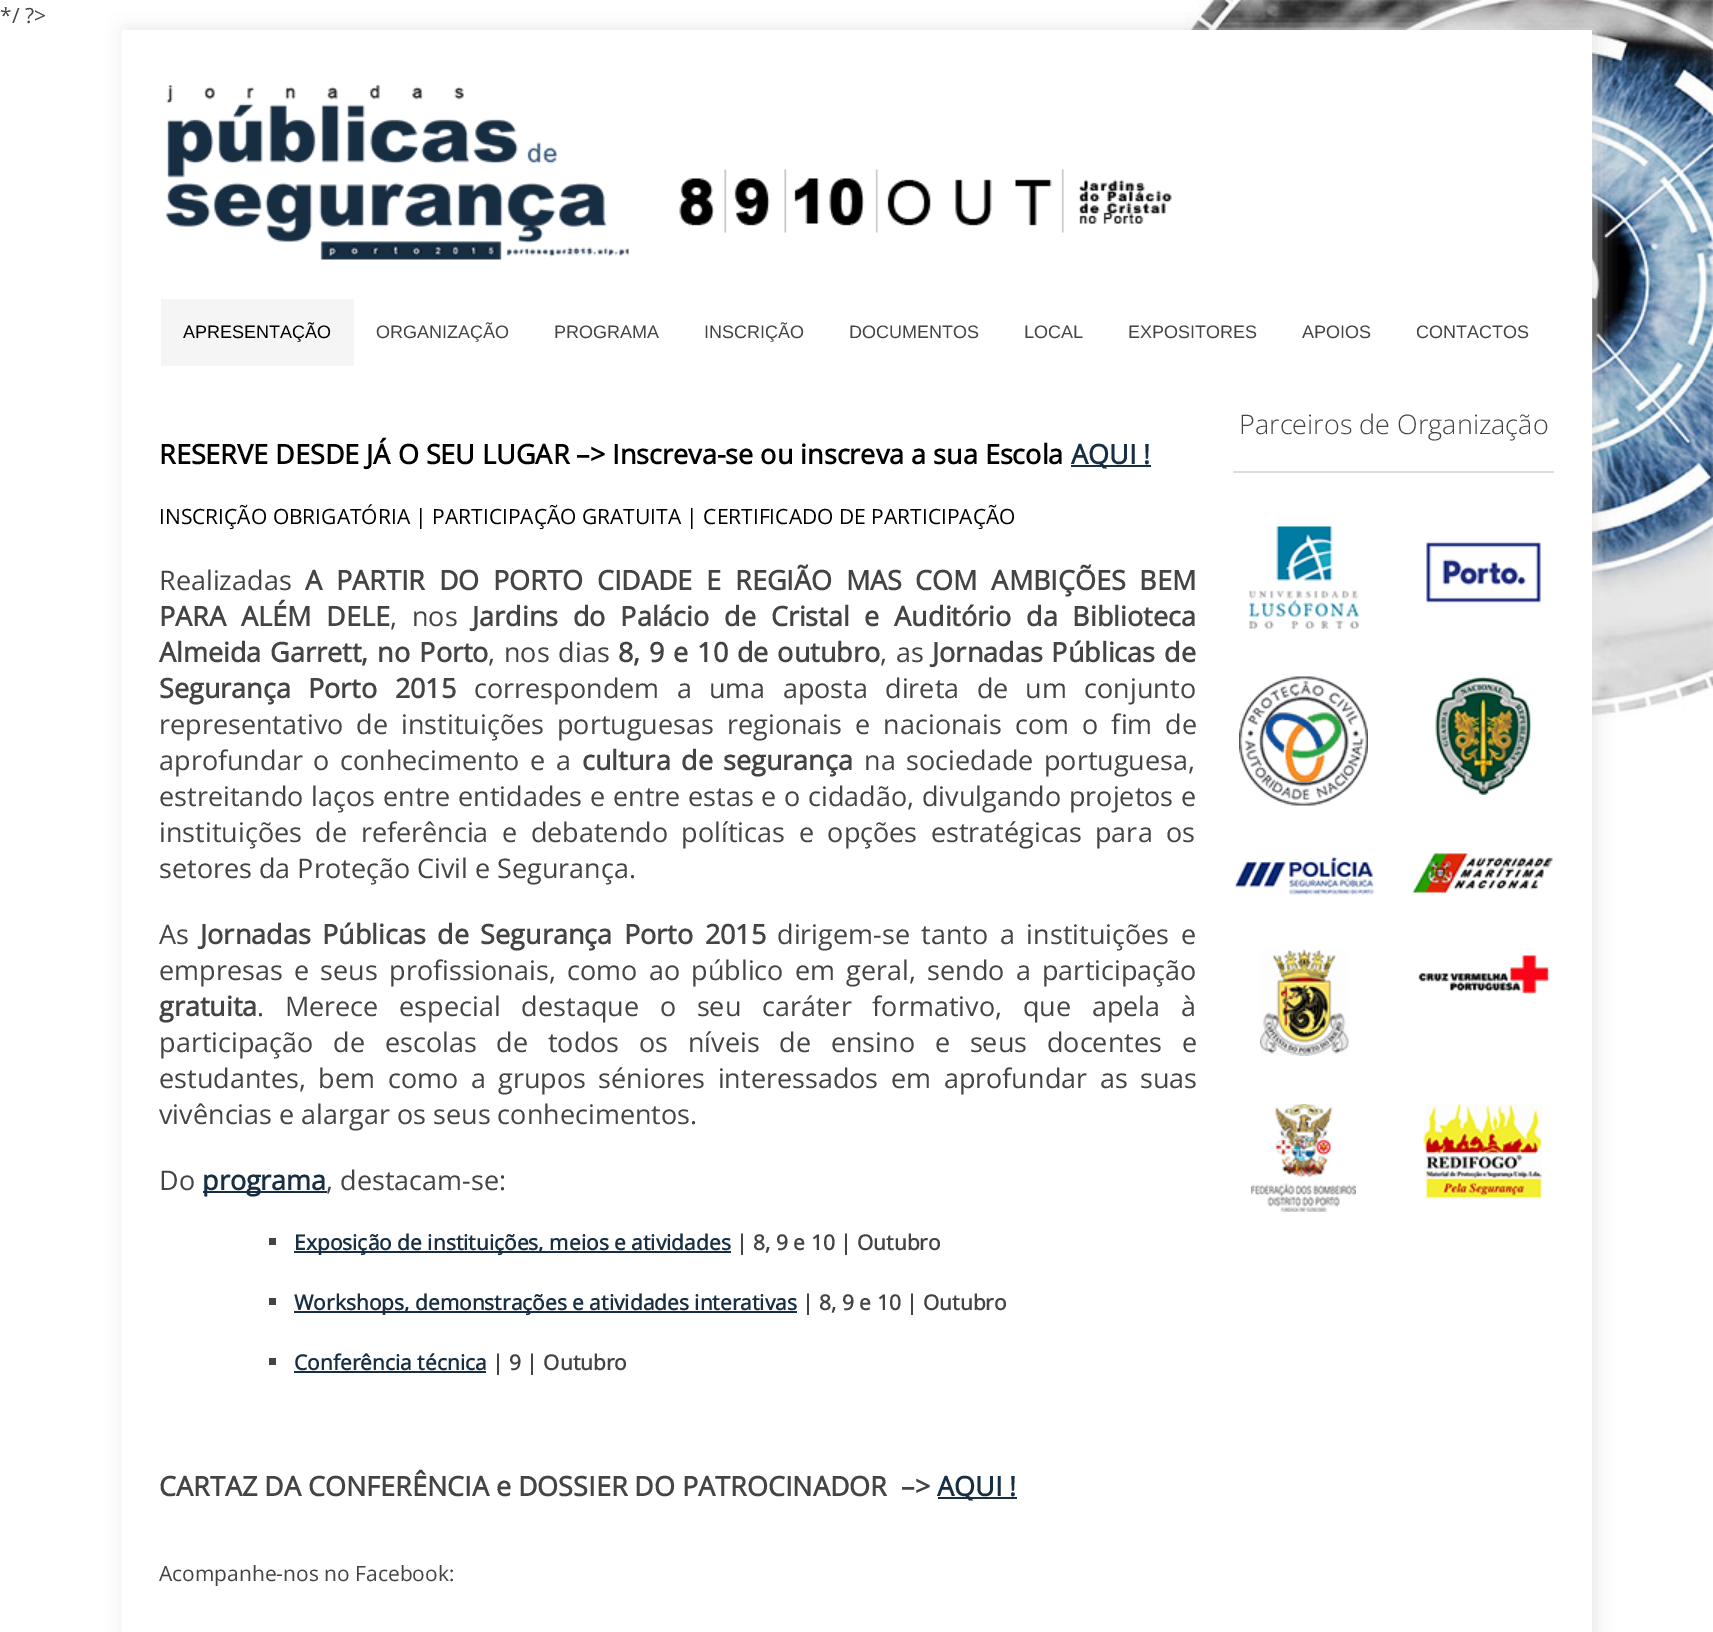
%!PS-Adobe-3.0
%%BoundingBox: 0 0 1713 1632
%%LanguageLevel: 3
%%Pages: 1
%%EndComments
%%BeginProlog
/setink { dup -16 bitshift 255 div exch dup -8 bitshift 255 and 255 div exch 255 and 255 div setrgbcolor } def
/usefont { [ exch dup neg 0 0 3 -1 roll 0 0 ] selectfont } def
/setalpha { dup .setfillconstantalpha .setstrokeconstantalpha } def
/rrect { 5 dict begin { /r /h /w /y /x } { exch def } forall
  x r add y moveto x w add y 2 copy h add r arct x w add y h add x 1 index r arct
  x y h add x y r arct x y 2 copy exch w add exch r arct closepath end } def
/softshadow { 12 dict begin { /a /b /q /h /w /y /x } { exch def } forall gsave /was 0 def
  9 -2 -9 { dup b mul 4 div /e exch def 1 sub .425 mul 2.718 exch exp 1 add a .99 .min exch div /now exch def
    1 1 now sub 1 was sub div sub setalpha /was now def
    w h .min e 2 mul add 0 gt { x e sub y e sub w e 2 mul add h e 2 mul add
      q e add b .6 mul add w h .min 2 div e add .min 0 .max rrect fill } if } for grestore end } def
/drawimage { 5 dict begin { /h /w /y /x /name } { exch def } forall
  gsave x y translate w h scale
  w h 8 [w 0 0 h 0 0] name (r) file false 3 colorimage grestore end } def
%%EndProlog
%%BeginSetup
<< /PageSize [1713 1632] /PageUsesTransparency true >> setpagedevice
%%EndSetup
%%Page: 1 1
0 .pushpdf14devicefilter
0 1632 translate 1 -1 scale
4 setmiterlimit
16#FFFFFF setink
0 0 1713 1632 rectfill
(img1.raw) 1113 0 600 718 drawimage
/OpenSans-Regular 21 usefont
16#444444 setink
0 23 moveto (*/ ?>) show
16#E4E4E4 setink
125 30 1470 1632 0 10 1 softshadow
16#FFFFFF setink
122 30 1470 1602 rectfill
(img2.raw) 166 85 1006 175 drawimage
16#F5F5F5 setink
161 299 193 67 rectfill
/LiberationSans-Regular 18 usefont
16#000000 setink
183 338 moveto (APRESENTAÇÃO) show
16#444444 setink
[
    [(ORGANIZAÇÃO) 376 338]
    [(PROGRAMA) 554 338]
    [(INSCRIÇÃO) 704 338]
    [(DOCUMENTOS) 849 338]
    [(LOCAL) 1024 338]
    [(EXPOSITORES) 1128 338]
    [(APOIOS) 1302 338]
    [(CONTACTOS) 1416 338]
] { aload pop moveto show } forall
/OpenSans-Light 27 usefont
1239 434 moveto (Parceiros de Organização) show
16#DDDDDD setink
1233 471 321 2 rectfill
(img3.raw) 1249 526 110 103 drawimage
(img4.raw) 1426 541 115 63 drawimage
(img5.raw) 1239 676 129 130 drawimage
(img6.raw) 1435 676 97 119 drawimage
(img7.raw) 1234 857 141 38 drawimage
(img8.raw) 1413 853 140 40 drawimage
(img9.raw) 1260 949 89 107 drawimage
(img10.raw) 1418 955 131 39 drawimage
(img11.raw) 1251 1104 105 108 drawimage
(img12.raw) 1423 1104 119 95 drawimage
/OpenSans-Bold 27 usefont
16#000000 setink
159 464 moveto (RESERVE DESDE JÁ O SEU LUGAR –> Inscreva-se ou inscreva a sua Escola) show
16#182E42 setink
1071 465 80 2 rectfill
1071 464 moveto (AQUI !) show
/OpenSans-Regular 21 usefont
16#000000 setink
159 524 moveto (INSCRIÇÃO OBRIGATÓRIA | PARTICIPAÇÃO GRATUITA | CERTIFICADO DE PARTICIPAÇÃO) show
/OpenSans-Regular 27 usefont
16#444444 setink
159 590 moveto (Realizadas) show
/OpenSans-Bold 27 usefont
305 590 moveto 6.75 0 32 (A PARTIR DO PORTO CIDADE E REGIÃO MAS COM AMBIÇÕES BEM) widthshow
159 626 moveto 7.75 0 32 (PARA ALÉM DELE) widthshow
/OpenSans-Regular 27 usefont
390 626 moveto 7.75 0 32 (, nos) widthshow
/OpenSans-Bold 27 usefont
472 626 moveto 7.75 0 32 (Jardins do Palácio de Cristal e Auditório da Biblioteca) widthshow
159 662 moveto 2 0 32 (Almeida Garrett, no Porto) widthshow
/OpenSans-Regular 27 usefont
488 662 moveto 1.75 0 32 (, nos dias) widthshow
/OpenSans-Bold 27 usefont
618 662 moveto 1.75 0 32 (8, 9 e 10 de outubro) widthshow
/OpenSans-Regular 27 usefont
880 662 moveto 2 0 32 (, as) widthshow
/OpenSans-Bold 27 usefont
932 662 moveto 2 0 32 (Jornadas Públicas de) widthshow
159 698 moveto 10.25 0 32 (Segurança Porto 2015) widthshow
/OpenSans-Regular 27 usefont
474 698 moveto 10.25 0 32 (correspondem a uma aposta direta de um conjunto) widthshow
159 734 moveto 6 0 32 (representativo de instituições portuguesas regionais e nacionais com o fim de) widthshow
159 770 moveto 3.5 0 32 (aprofundar o conhecimento e a) widthshow
/OpenSans-Bold 27 usefont
582 770 moveto 3.5 0 32 (cultura de segurança) widthshow
/OpenSans-Regular 27 usefont
864 770 moveto 3.5 0 32 (na sociedade portuguesa,) widthshow
159 806 moveto 0.7 0 32 (estreitando laços entre entidades e entre estas e o cidadão, divulgando projetos e) widthshow
159 842 moveto 6.5 0 32 (instituições de referência e debatendo políticas e opções estratégicas para os) widthshow
159 878 moveto (setores da Proteção Civil e Segurança.) show
159 944 moveto (As) show
/OpenSans-Bold 27 usefont
200 944 moveto 4.5 0 32 (Jornadas Públicas de Segurança Porto 2015) widthshow
/OpenSans-Regular 27 usefont
777 944 moveto 4.5 0 32 (dirigem-se tanto a instituições e) widthshow
159 980 moveto 4.25 0 32 (empresas e seus profissionais, como ao público em geral, sendo a participação) widthshow
/OpenSans-Bold 27 usefont
159 1016 moveto (gratuita) show
/OpenSans-Regular 27 usefont
257 1016 moveto 13.75 0 32 (. Merece especial destaque o seu caráter formativo, que apela à) widthshow
159 1052 moveto 12.75 0 32 (participação de escolas de todos os níveis de ensino e seus docentes e) widthshow
159 1088 moveto 5.5 0 32 (estudantes, bem como a grupos séniores interessados em aprofundar as suas) widthshow
159 1124 moveto (vivências e alargar os seus conhecimentos.) show
159 1190 moveto (Do) show
16#182E42 setink
203 1191 124 2 rectfill
/OpenSans-Bold 27 usefont
202 1190 moveto (programa) show
/OpenSans-Regular 27 usefont
16#444444 setink
326 1190 moveto (, destacam-se:) show
269 1238 7 7 rectfill
16#182E42 setink
294 1251 437 2 rectfill
/OpenSans-Bold 21 usefont
294 1250 moveto (Exposição de instituições, meios e atividades) show
16#444444 setink
736 1250 moveto (| 8, 9 e 10 | Outubro) show
269 1298 7 7 rectfill
16#182E42 setink
294 1311 503 2 rectfill
294 1310 moveto (Workshops, demonstrações e atividades interativas) show
16#444444 setink
802 1310 moveto (| 8, 9 e 10 | Outubro) show
269 1358 7 7 rectfill
16#182E42 setink
294 1370 moveto (Conferência técnica) show
294 1371 192 2 rectfill
16#444444 setink
492 1370 moveto (| 9 | Outubro) show
/OpenSans-Bold 27 usefont
159 1496 moveto (CARTAZ DA CONFERÊNCIA e DOSSIER DO PATROCINADOR) show
901 1496 moveto (–>) show
16#182E42 setink
938 1497 79 2 rectfill
937 1496 moveto (AQUI !) show
/OpenSans-Regular 21 usefont
16#444444 setink
159 1581 moveto (Acompanhe-nos no Facebook:) show
.poppdf14devicefilter showpage
%%EOF
